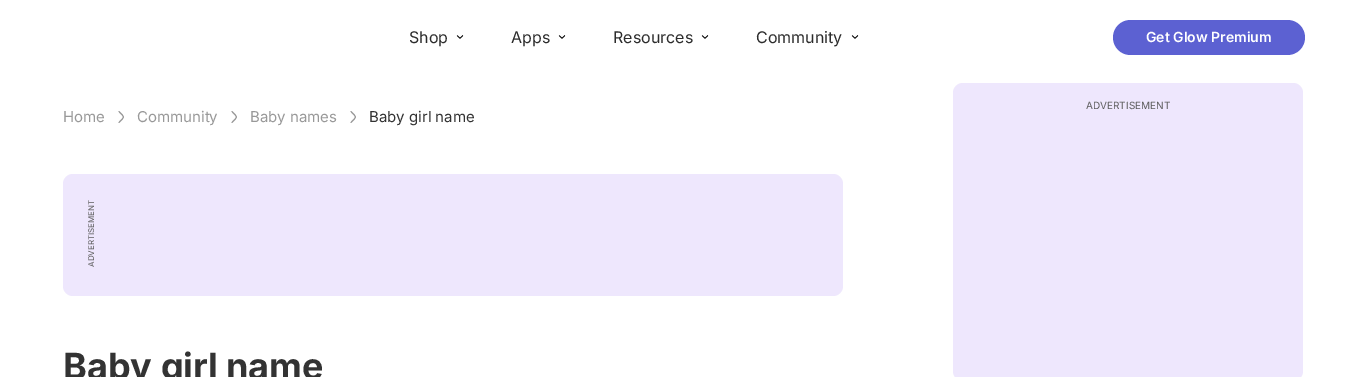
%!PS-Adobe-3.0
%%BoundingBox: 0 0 1366 377
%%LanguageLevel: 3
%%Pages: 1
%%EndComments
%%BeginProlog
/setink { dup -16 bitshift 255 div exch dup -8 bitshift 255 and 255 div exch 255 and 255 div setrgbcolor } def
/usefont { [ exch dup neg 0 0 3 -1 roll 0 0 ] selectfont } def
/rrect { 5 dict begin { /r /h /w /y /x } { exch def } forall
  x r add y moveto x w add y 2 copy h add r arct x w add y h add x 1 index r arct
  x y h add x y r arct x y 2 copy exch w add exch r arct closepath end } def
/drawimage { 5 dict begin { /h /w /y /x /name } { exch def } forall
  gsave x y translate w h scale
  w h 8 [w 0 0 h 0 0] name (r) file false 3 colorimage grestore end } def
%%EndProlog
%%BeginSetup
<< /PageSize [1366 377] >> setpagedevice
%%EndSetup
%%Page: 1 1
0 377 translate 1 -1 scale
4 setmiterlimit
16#FFFFFF setink
0 0 1366 377 rectfill
/Inter-Regular 16 usefont
16#2C2C2C setink
409 43 moveto (Shop) show
(img1.raw) 456 35 8 4 drawimage
511 43 moveto (Apps) show
(img1.raw) 558 35 8 4 drawimage
613 43 moveto (Resources) show
(img1.raw) 701 35 8 4 drawimage
756 43 moveto (Community) show
(img1.raw) 851 35 8 4 drawimage
16#5C61D2 setink
1113 20 192 35 17.5 rrect fill
/Inter-SemiBold 14 usefont
16#FFFFFF setink
1146 42 moveto (Get Glow Premium) show
16#EEE7FD setink
953 83 350 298 10 rrect fill
/Inter-Regular 10 usefont
16#5C5C5C setink
1086 109 moveto (ADVERTISEMENT) show
/Inter-Regular 15 usefont
16#999999 setink
63 122 moveto (Home) show
1 setlinecap
1 setlinejoin
119 122.5 moveto 125 116 125 118 119 111.5 curveto stroke
137 122 moveto (Community) show
232 122.5 moveto 238 116 238 118 232 111.5 curveto stroke
250 122 moveto (Baby names) show
351 122.5 moveto 357 116 357 118 351 111.5 curveto stroke
16#333333 setink
369 122 moveto (Baby girl name) show
16#EEE7FD setink
63 174 780 122 10 rrect fill
/Inter-Regular 8 usefont
16#5C5C5C setink
gsave 94 267 translate -90 rotate 0 0 moveto (ADVERTISEMENT) show grestore
/Inter-Bold 36 usefont
16#333333 setink
63 379 moveto (Baby girl name) show
showpage
%%EOF
